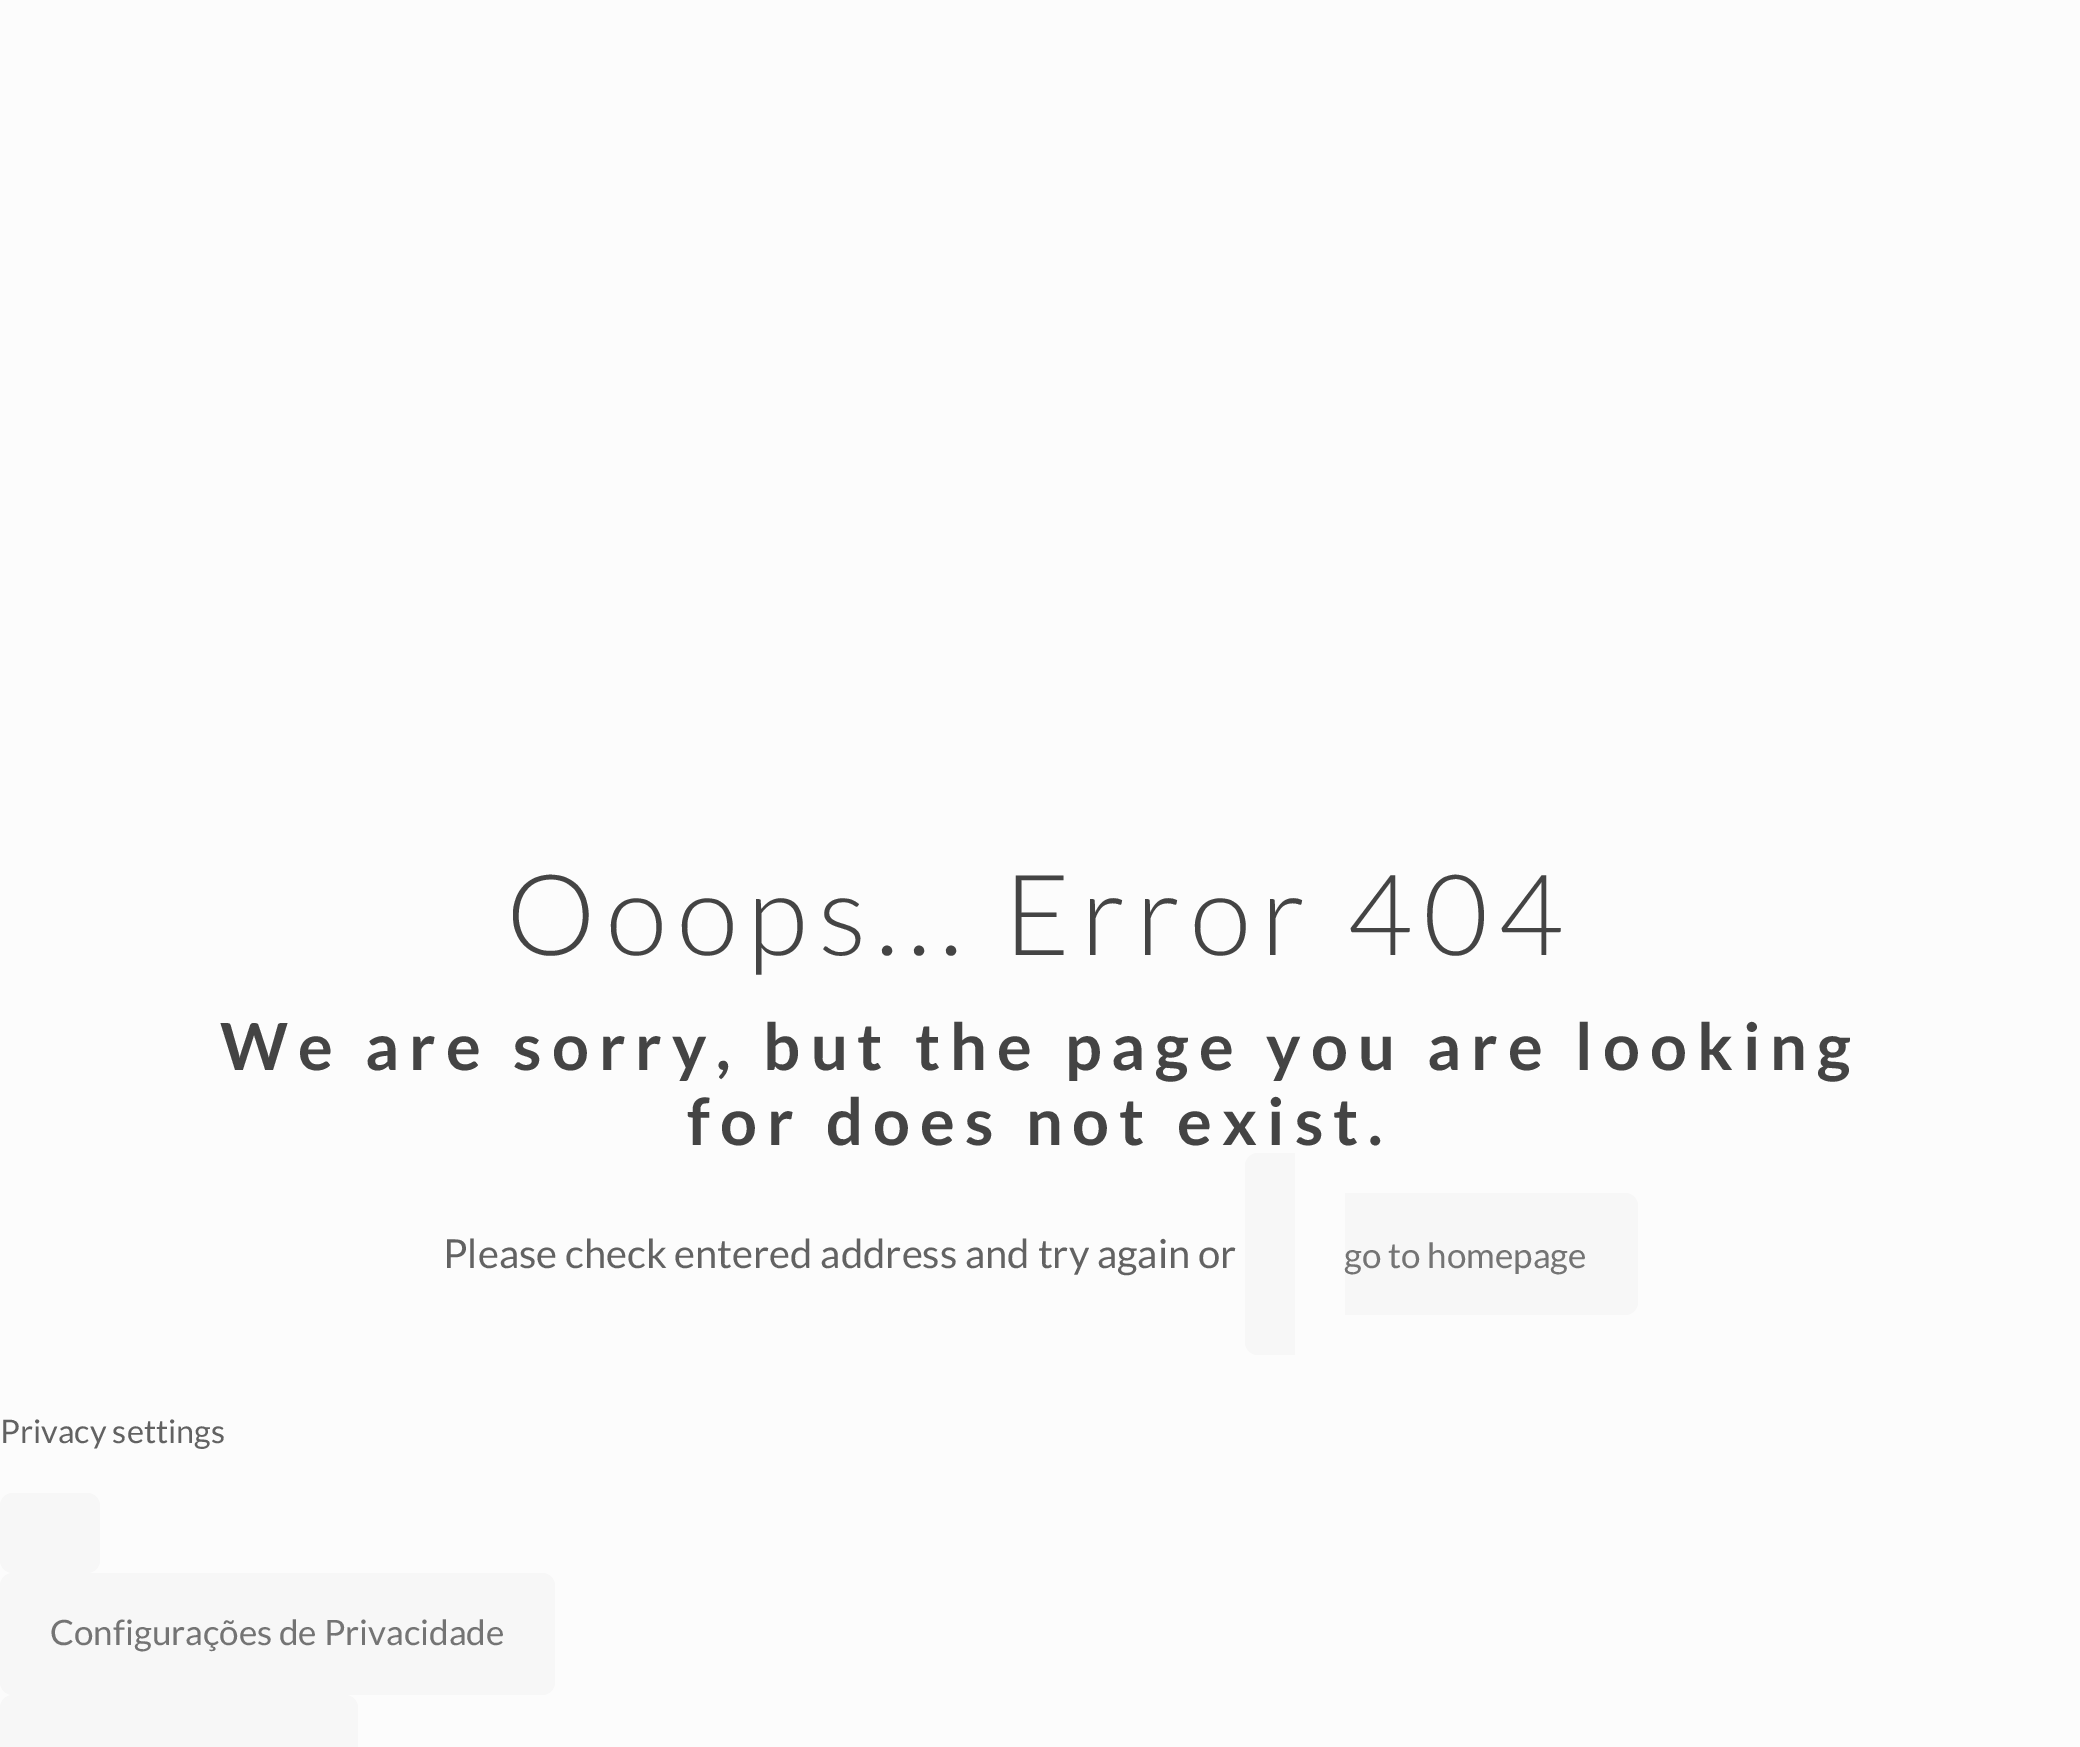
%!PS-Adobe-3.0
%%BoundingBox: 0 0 2080 1747
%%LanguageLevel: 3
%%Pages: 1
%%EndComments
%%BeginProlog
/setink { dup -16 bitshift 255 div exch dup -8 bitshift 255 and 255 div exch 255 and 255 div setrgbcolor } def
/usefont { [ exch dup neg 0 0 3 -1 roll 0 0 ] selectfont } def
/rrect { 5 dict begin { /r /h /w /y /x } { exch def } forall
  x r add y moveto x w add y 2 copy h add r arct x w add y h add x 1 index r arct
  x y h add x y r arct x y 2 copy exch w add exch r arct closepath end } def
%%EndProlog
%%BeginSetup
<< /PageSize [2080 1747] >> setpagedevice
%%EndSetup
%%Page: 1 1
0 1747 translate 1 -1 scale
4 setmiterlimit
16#FCFCFC setink
0 0 2080 1747 rectfill
/Lato-Light 112.5 usefont
16#444444 setink
506 955 moveto 10 0 (Ooops... Error 404) ashow
/Lato-Bold 65 usefont
220 1070 moveto 10 0 (We are sorry, but the page you are looking) ashow
687 1145 moveto 10 0 (for does not exist.) ashow
/Lato-Regular 40 usefont
16#626262 setink
443 1268 moveto (Please check entered address and try again or) show
16#F7F7F7 setink
1345 1193 moveto 1625 1193 lineto 1632 1193 1638 1199 1638 1206 curveto 1638 1302 lineto 1638 1309 1632 1315 1625 1315 curveto 1345 1315 lineto closepath fill
/Lato-Regular 35 usefont
16#747474 setink
1344 1268 moveto (go to homepage) show
16#F7F7F7 setink
1258 1153 moveto 1295 1153 lineto 1295 1355 lineto 1258 1355 lineto 1251 1355 1245 1349 1245 1342 curveto 1245 1166 lineto 1245 1159 1251 1153 1258 1153 curveto closepath fill
/Lato-Regular 32.5 usefont
16#626262 setink
0 1443 moveto (Privacy settings) show
16#F7F7F7 setink
0 1493 100 80 13 rrect fill
0 1573 555 122 13 rrect fill
/Lato-Regular 35 usefont
16#747474 setink
50 1645 moveto (Configurações de Privacidade) show
16#F7F7F7 setink
0 1695 358 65 13 rrect fill
showpage
%%EOF
